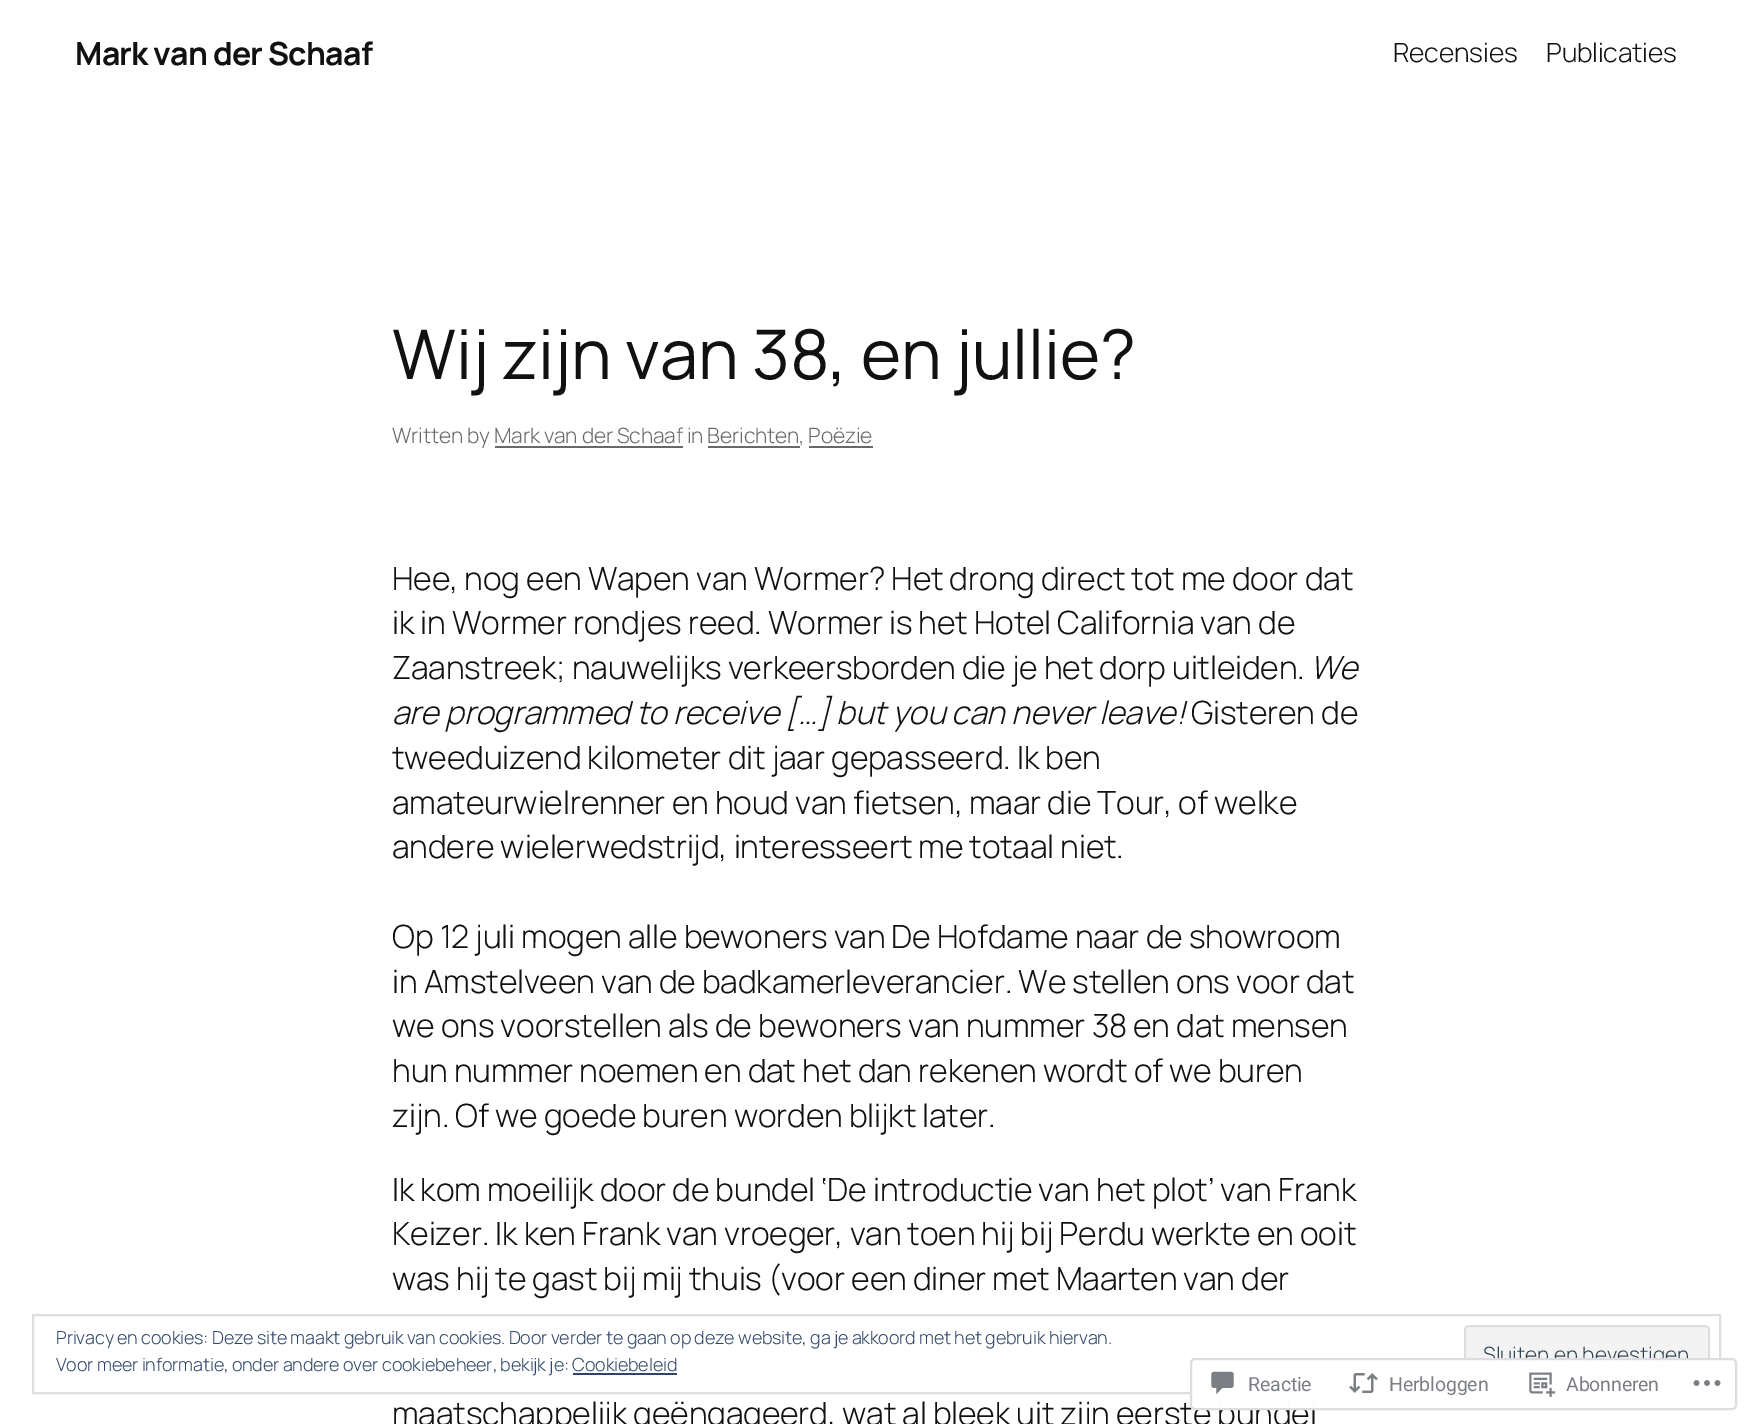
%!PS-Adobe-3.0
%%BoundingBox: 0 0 1752 1424
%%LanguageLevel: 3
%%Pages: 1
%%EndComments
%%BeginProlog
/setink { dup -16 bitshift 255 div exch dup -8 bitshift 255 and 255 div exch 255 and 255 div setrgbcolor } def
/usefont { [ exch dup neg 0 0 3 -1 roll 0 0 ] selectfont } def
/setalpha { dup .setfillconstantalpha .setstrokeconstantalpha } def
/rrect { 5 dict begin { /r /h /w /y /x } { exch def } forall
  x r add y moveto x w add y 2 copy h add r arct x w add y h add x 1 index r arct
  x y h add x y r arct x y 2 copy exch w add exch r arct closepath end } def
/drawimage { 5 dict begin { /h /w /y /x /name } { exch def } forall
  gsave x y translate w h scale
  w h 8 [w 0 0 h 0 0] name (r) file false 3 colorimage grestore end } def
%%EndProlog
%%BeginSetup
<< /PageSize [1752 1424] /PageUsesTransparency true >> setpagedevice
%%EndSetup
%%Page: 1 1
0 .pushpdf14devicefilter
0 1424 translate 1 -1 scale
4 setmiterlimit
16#FFFFFF setink
0 0 1752 1424 rectfill
/Manrope-Bold 32 usefont
16#111111 setink
75 65 moveto -0.75 0 (Mark van der Schaaf) ashow
/Manrope-Light 26.5 usefont
1393 62 moveto -0.15 0 (Recensies) ashow
1546 62 moveto -0.15 0 (Publicaties) ashow
/Manrope-Regular 68.5 usefont
392 379 moveto -0.15 0 (Wij zijn van 38, en jullie?) ashow
/Manrope-Light 21 usefont
16#686868 setink
392 443 moveto -0.15 0 (Written by Mark van der Schaaf in Berichten, Poëzie) ashow
[
    [495 446 188 2 16#686868]
    [708 446 92 2 16#686868]
    [809 446 64 2 16#686868]
] { aload pop setink rectfill } forall
/Manrope-Light 32 usefont
16#111111 setink
392 590 moveto -0.15 0 (Hee, nog een Wapen van Wormer? Het drong direct tot me door dat) ashow
392 634 moveto -0.15 0 (ik in Wormer rondjes reed. Wormer is het Hotel California van de) ashow
392 679 moveto -0.15 0 (Zaanstreek; nauwelijks verkeersborden die je het dorp uitleiden.) ashow
/Manrope-LightItalic 32 usefont
1310 679 moveto -0.15 0 (We) ashow
392 724 moveto -0.15 0 (are programmed to receive […] but you can never leave!) ashow
/Manrope-Light 32 usefont
1191 724 moveto -0.15 0 (Gisteren de) ashow
392 769 moveto -0.15 0 (tweeduizend kilometer dit jaar gepasseerd. Ik ben) ashow
392 814 moveto -0.15 0 (amateurwielrenner en houd van fietsen, maar die Tour, of welke) ashow
392 858 moveto -0.15 0 (andere wielerwedstrijd, interesseert me totaal niet.) ashow
392 948 moveto -0.15 0 (Op 12 juli mogen alle bewoners van De Hofdame naar de showroom) ashow
392 993 moveto -0.15 0 (in Amstelveen van de badkamerleverancier. We stellen ons voor dat) ashow
392 1037 moveto -0.15 0 (we ons voorstellen als de bewoners van nummer 38 en dat mensen) ashow
392 1082 moveto -0.15 0 (hun nummer noemen en dat het dan rekenen wordt of we buren) ashow
392 1127 moveto -0.15 0 (zijn. Of we goede buren worden blijkt later.) ashow
392 1201 moveto -0.15 0 (Ik kom moeilijk door de bundel ‘De introductie van het plot’ van Frank) ashow
392 1245 moveto -0.15 0 (Keizer. Ik ken Frank van vroeger, van toen hij bij Perdu werkte en ooit) ashow
392 1290 moveto -0.15 0 (was hij te gast bij mij thuis \(voor een diner met Maarten van der) ashow
392 1425 moveto -0.15 0 (maatschappelijk geëngageerd, wat al bleek uit zijn eerste bundel) ashow
16#DEDEDE setink
2 setlinewidth
33 1315 1687 78 rectstroke
/Manrope-Light 18 usefont
16#2E4467 setink
56 1344 moveto -0.15 0 (Privacy en cookies: Deze site maakt gebruik van cookies. Door verder te gaan op deze website, ga je akkoord met het gebruik hiervan.) ashow
56 1371 moveto -0.15 0 (Voor meer informatie, onder andere over cookiebeheer, bekijk je: Cookiebeleid) ashow
16#F3F3F3 setink
1465 1326 244 56 4 rrect gsave fill grestore
16#DEDEDE setink
stroke
/Manrope-Light 21 usefont
16#2E4453 setink
1483 1362 moveto (Sluiten en bevestigen) show
16#2E4467 setink
573 1373 104 2 rectfill
0.98 setalpha
16#FFFFFF setink
1190 1358 547 52 5 rrect fill
16#DCDCDE setink
1191 1359 545 50 4 rrect stroke
1 setalpha
(img1.raw) 1211 1371 23 24 drawimage
/Roboto-Regular 19.5 usefont
16#7B7F85 setink
1248 1391 moveto -0.15 0 (Reactie) ashow
(img2.raw) 1349 1373 29 20 drawimage
1389 1391 moveto -0.15 0 (Herbloggen) ashow
(img3.raw) 1529 1372 27 25 drawimage
1566 1391 moveto -0.15 0 (Abonneren) ashow
(img4.raw) 1693 1380 28 6 drawimage
.poppdf14devicefilter showpage
%%EOF
